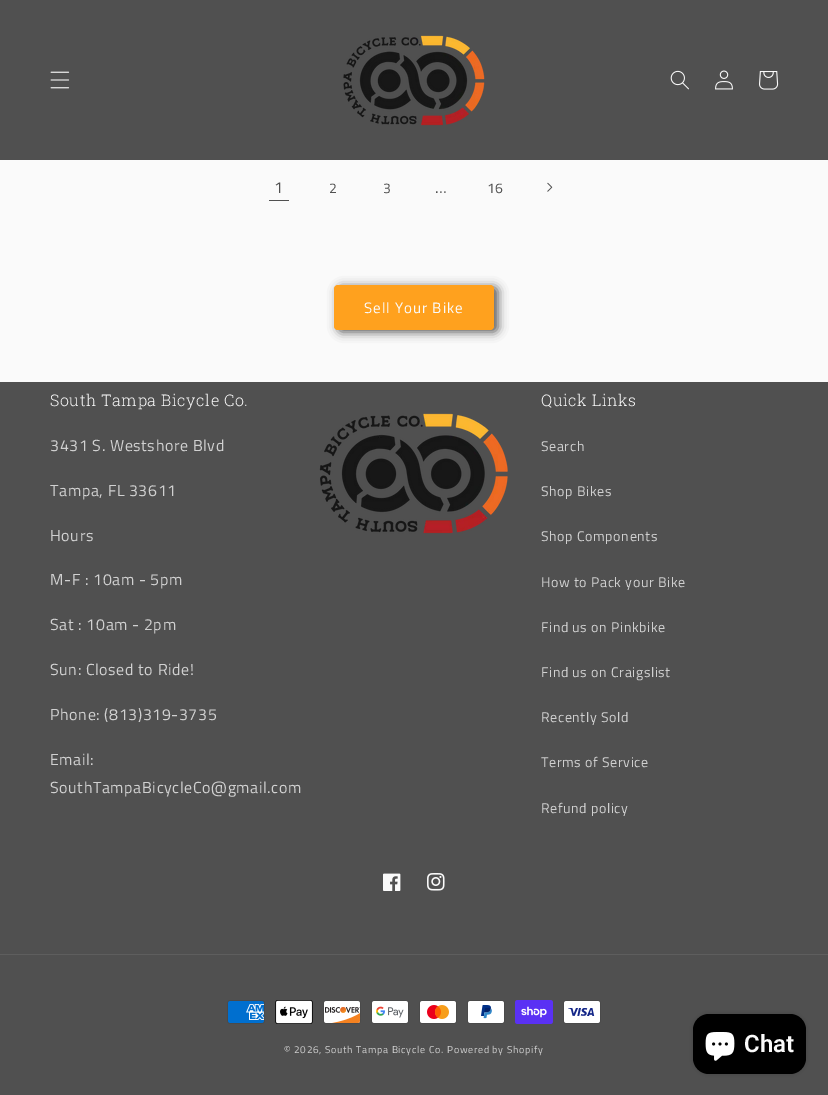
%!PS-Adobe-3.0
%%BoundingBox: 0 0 828 1095
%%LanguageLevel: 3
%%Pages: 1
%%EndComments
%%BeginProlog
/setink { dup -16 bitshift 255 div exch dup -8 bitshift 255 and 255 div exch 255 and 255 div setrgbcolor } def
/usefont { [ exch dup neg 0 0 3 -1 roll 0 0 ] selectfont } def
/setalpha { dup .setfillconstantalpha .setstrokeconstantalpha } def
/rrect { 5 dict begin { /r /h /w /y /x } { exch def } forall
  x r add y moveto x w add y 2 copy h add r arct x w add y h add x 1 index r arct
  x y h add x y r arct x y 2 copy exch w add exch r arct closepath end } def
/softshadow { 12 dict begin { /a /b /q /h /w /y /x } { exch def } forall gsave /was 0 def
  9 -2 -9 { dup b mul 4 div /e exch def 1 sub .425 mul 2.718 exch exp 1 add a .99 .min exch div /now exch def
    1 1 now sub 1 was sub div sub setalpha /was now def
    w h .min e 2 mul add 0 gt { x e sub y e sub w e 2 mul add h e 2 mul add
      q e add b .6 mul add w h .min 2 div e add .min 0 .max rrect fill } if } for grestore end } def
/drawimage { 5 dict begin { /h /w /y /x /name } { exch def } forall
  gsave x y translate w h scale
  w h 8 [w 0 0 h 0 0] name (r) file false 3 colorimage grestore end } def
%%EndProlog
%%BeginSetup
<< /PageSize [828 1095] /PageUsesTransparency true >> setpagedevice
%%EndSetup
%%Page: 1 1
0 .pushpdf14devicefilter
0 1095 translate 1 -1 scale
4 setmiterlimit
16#FAFAFA setink
0 0 828 1095 rectfill
16#505050 setink
0 0 828 160 rectfill
(img1.raw) 50 71 20 18 drawimage
(img2.raw) 343 35 142 91 drawimage
(img3.raw) 670 70 19 20 drawimage
(img4.raw) 715 70 18 20 drawimage
(img5.raw) 759 71 20 19 drawimage
/TitilliumWeb-Regular 16 usefont
274 193 moveto 0.6 0 (1) ashow
269 200 20 1 rectfill
/TitilliumWeb-Regular 14 usefont
329 193 moveto 0.6 0 (2) ashow
383 193 moveto 0.6 0 (3) ashow
/TitilliumWeb-Regular 16 usefont
435 193 moveto 0.6 0 (…) ashow
/TitilliumWeb-Regular 14 usefont
487 193 moveto 0.6 0 (16) ashow
(img6.raw) 547 182 6 10 drawimage
338 287 160 45 4 5 1 softshadow
16#FFA11E setink
334 285 160 45 4 rrect fill
/TitilliumWeb-Regular 15 usefont
16#FAFAFA setink
364 313 moveto 1 0 (Sell Your Bike) ashow
16#505050 setink
0 382 828 713 rectfill
/RobotoSlab-Light 16 usefont
16#FAFAFA setink
50 406 moveto 0.6 0 (South Tampa Bicycle Co.) ashow
/TitilliumWeb-Regular 16 usefont
16#D0D0D0 setink
50 451 moveto 0.6 0 (3431 S. Westshore Blvd) ashow
50 496 moveto 0.6 0 (Tampa, FL 33611) ashow
50 541 moveto 0.6 0 (Hours) ashow
50 585 moveto 0.6 0 (M-F : 10am - 5pm) ashow
50 630 moveto 0.6 0 (Sat : 10am - 2pm) ashow
50 675 moveto 0.6 0 (Sun: Closed to Ride!) ashow
50 720 moveto 0.6 0 (Phone: \(813\)319-3735) ashow
50 765 moveto 0.6 0 (Email:) ashow
50 793 moveto 0.6 0 (SouthTampaBicycleCo@gmail.com) ashow
(img7.raw) 319 413 189 121 drawimage
/RobotoSlab-Light 16 usefont
16#FAFAFA setink
541 406 moveto 0.6 0 (Quick Links) ashow
/TitilliumWeb-Regular 14 usefont
16#D0D0D0 setink
541 451 moveto 0.6 0 (Search) ashow
541 496 moveto 0.6 0 (Shop Bikes) ashow
541 541 moveto 0.6 0 (Shop Components) ashow
541 587 moveto 0.6 0 (How to Pack your Bike) ashow
541 632 moveto 0.6 0 (Find us on Pinkbike) ashow
541 677 moveto 0.6 0 (Find us on Craigslist) ashow
541 722 moveto 0.6 0 (Recently Sold) ashow
541 767 moveto 0.6 0 (Terms of Service) ashow
541 813 moveto 0.6 0 (Refund policy) ashow
(img8.raw) 383 873 18 18 drawimage
(img9.raw) 427 873 18 18 drawimage
16#5E5E5E setink
0 954 828 1 rectfill
(img10.raw) 227 1000 38 24 drawimage
(img11.raw) 275 1000 38 24 drawimage
(img12.raw) 323 1000 38 24 drawimage
(img13.raw) 371 1000 38 24 drawimage
(img14.raw) 419 1000 38 24 drawimage
(img15.raw) 467 1000 38 24 drawimage
(img16.raw) 515 1000 38 24 drawimage
(img17.raw) 563 1000 38 24 drawimage
/TitilliumWeb-Regular 10 usefont
16#D0D0D0 setink
284 1053 moveto 0.7 0 (© 2026, South Tampa Bicycle Co.) ashow
447 1053 moveto 0.7 0 (Powered by Shopify) ashow
16#000000 setink
693 1014 113 60 16 2.5 0.15 softshadow
693 1014 113 60 16 rrect fill
(img18.raw) 705 1032 30 29 drawimage
/Roboto-SemiBold 24 usefont
16#FAFAFA setink
744 1052 moveto (Chat) show
.poppdf14devicefilter showpage
%%EOF
